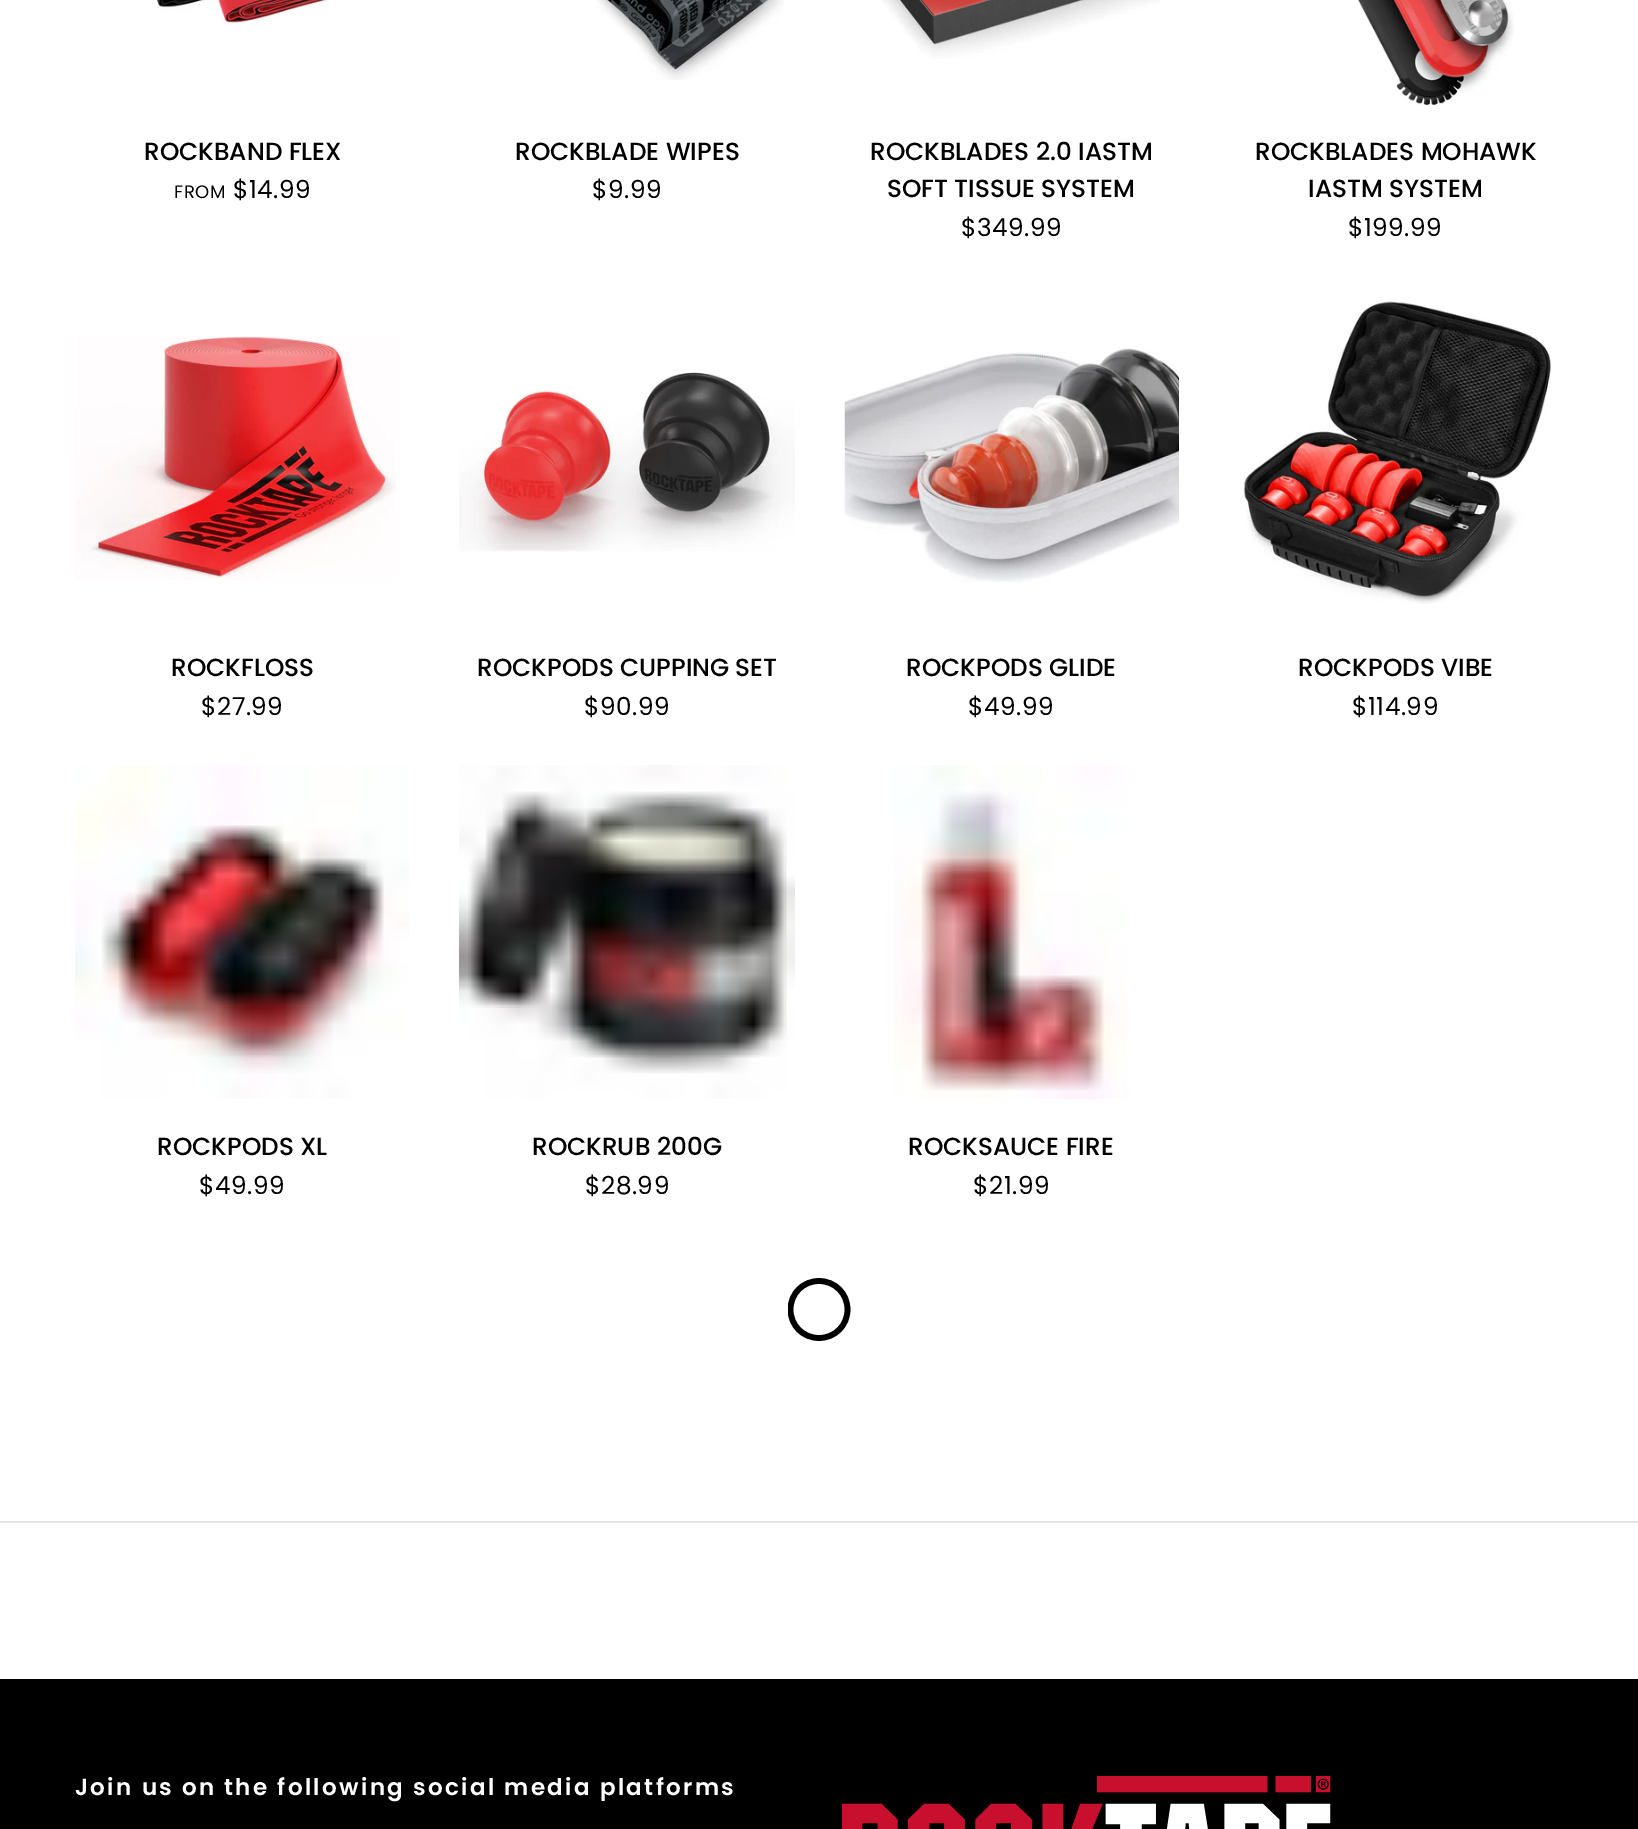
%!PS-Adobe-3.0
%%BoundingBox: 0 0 1638 1829
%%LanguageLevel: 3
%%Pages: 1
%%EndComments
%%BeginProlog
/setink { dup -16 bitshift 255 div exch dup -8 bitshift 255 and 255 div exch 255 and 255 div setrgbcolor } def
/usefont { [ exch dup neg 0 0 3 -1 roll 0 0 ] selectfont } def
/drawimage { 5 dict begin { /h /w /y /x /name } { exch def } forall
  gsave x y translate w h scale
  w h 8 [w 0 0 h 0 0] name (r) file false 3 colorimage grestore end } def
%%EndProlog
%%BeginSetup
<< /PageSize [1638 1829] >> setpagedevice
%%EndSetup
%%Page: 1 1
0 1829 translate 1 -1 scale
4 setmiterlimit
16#FFFFFF setink
0 0 1638 1829 rectfill
(img1.raw) 157 0 173 26 drawimage
/Poppins-Medium 24.75 usefont
16#000000 setink
144 160 moveto (ROCKBAND FLEX) show
/Poppins-Regular 18 usefont
174 198 moveto 0.5 0 (FROM) ashow
/Poppins-Regular 24.75 usefont
233 198 moveto 0.5 0 ($14.99) ashow
(img2.raw) 596 0 188 80 drawimage
/Poppins-Medium 24.75 usefont
515 160 moveto (ROCKBLADE WIPES) show
/Poppins-Regular 24.75 usefont
592 198 moveto 0.5 0 ($9.99) ashow
(img3.raw) 882 0 279 59 drawimage
/Poppins-Medium 24.75 usefont
870 160 moveto (ROCKBLADES 2.0 IASTM) show
887 197 moveto (SOFT TISSUE SYSTEM) show
/Poppins-Regular 24.75 usefont
961 236 moveto 0.5 0 ($349.99) ashow
(img4.raw) 1357 0 157 105 drawimage
/Poppins-Medium 24.75 usefont
1255 160 moveto (ROCKBLADES MOHAWK) show
1308 197 moveto (IASTM SYSTEM) show
/Poppins-Regular 24.75 usefont
1348 236 moveto 0.5 0 ($199.99) ashow
(img5.raw) 75 336 321 244 drawimage
/Poppins-Medium 24.75 usefont
171 676 moveto (ROCKFLOSS) show
/Poppins-Regular 24.75 usefont
201 715 moveto 0.5 0 ($27.99) ashow
(img6.raw) 459 372 336 180 drawimage
/Poppins-Medium 24.75 usefont
477 676 moveto (ROCKPODS CUPPING SET) show
/Poppins-Regular 24.75 usefont
584 715 moveto 0.5 0 ($90.99) ashow
(img7.raw) 844 348 335 234 drawimage
/Poppins-Medium 24.75 usefont
906 676 moveto (ROCKPODS GLIDE) show
/Poppins-Regular 24.75 usefont
968 715 moveto 0.5 0 ($49.99) ashow
(img8.raw) 1243 301 308 303 drawimage
/Poppins-Medium 24.75 usefont
1298 676 moveto (ROCKPODS VIBE) show
/Poppins-Regular 24.75 usefont
1352 715 moveto 0.5 0 ($114.99) ashow
(img9.raw) 75 765 334 334 drawimage
/Poppins-Medium 24.75 usefont
157 1155 moveto (ROCKPODS XL) show
/Poppins-Regular 24.75 usefont
199 1194 moveto 0.5 0 ($49.99) ashow
(img10.raw) 459 765 336 334 drawimage
/Poppins-Medium 24.75 usefont
532 1155 moveto (ROCKRUB 200G) show
/Poppins-Regular 24.75 usefont
585 1194 moveto 0.5 0 ($28.99) ashow
(img11.raw) 893 765 236 334 drawimage
/Poppins-Medium 24.75 usefont
908 1155 moveto (ROCKSAUCE FIRE) show
/Poppins-Regular 24.75 usefont
973 1194 moveto 0.5 0 ($21.99) ashow
gsave
788 1278 63 63 rectclip
5.7 setlinewidth
819 1281 moveto 835 1281 847.5 1293.5 847.5 1309.5 curveto 847.5 1325.5 835 1338 819 1338 curveto 803 1338 790.5 1325.5 790.5 1309.5 curveto 790.5 1293.5 803 1281 819 1281 curveto stroke
grestore
16#E2E2E2 setink
0 1521 1638 2 rectfill
16#000000 setink
0 1679 1638 150 rectfill
/Poppins-SemiBold 23.1 usefont
16#FFFFFF setink
75 1795 moveto 2.3 0 (Join us on the following social media platforms) ashow
(img12.raw) 842 1776 489 53 drawimage
showpage
%%EOF
